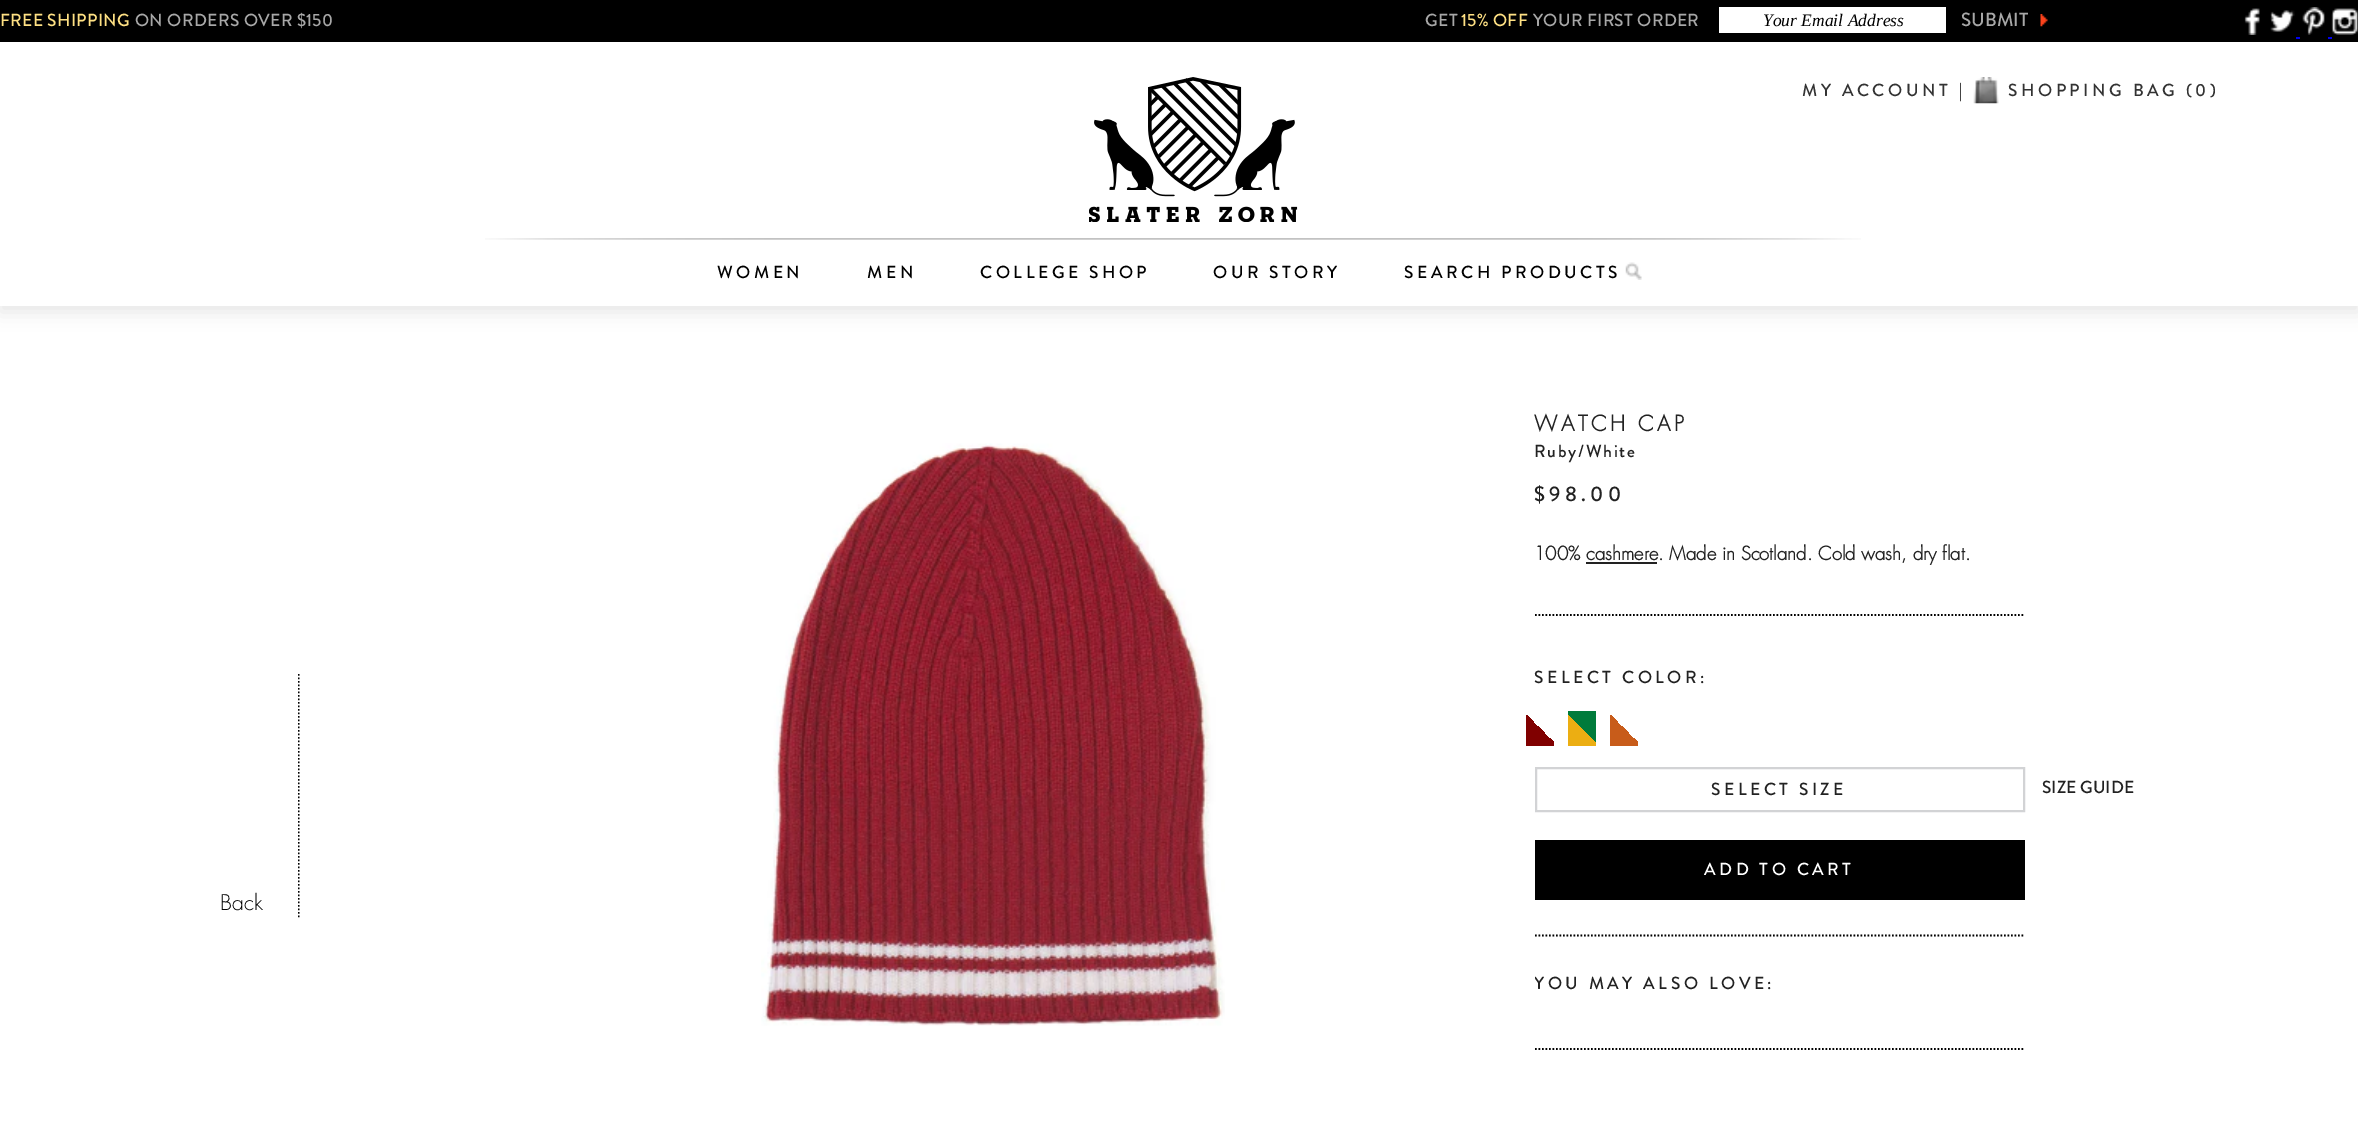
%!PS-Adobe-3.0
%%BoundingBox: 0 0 2358 1129
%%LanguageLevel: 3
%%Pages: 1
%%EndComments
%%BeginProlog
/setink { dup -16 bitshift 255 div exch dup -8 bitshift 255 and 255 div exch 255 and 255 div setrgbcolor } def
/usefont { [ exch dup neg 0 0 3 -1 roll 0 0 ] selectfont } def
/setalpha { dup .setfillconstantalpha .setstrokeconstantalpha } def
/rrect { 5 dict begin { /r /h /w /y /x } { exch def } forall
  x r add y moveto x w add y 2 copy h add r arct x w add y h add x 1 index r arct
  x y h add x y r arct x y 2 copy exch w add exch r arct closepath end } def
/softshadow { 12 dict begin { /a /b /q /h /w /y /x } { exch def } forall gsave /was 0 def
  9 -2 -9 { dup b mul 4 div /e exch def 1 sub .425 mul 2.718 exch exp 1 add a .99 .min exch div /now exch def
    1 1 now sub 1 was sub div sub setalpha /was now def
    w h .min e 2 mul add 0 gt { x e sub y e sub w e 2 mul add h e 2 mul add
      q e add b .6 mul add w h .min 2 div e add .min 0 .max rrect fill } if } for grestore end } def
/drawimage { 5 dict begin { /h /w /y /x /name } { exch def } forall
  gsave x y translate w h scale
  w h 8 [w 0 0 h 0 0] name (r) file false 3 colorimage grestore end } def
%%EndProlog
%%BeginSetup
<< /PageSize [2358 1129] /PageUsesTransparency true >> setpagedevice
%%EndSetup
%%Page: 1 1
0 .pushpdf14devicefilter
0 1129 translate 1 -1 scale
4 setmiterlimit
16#FFFFFF setink
0 0 2358 1129 rectfill
16#000000 setink
0 -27 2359 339 0 9 0.1 softshadow
0 0 2358 42 rectfill
/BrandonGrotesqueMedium-Medium 17.5 usefont
16#FEE083 setink
0 26 moveto 0.3 0 (FREE SHIPPING) ashow
16#A7A7A7 setink
135 26 moveto 0.3 0 (ON ORDERS OVER $150) ashow
1425 26 moveto 0.3 0 (GET) ashow
16#FEE083 setink
1461 26 moveto 0.3 0 (15% OFF) ashow
16#A7A7A7 setink
1533 26 moveto 0.3 0 (YOUR FIRST ORDER) ashow
16#FFFFFF setink
1719 7 227 26 rectfill
/LiberationSerif-Italic 17.5 usefont
16#000000 setink
1763 26 moveto (Your Email Address) show
(img1.raw) 2040 14 8 13 drawimage
/BrandonGrotesqueMedium-Medium 19 usefont
16#A7A7A7 setink
1961 26 moveto (SUBMIT) show
(img2.raw) 2244 8 16 27 drawimage
(img3.raw) 2270 10 25 22 drawimage
(img4.raw) 2302 7 23 28 drawimage
(img5.raw) 2331 8 27 27 drawimage
[
    [2296 37 4 2 16#0000EE]
    [2328 37 4 2 16#0000EE]
    [0 42 2358 264 16#FFFFFF]
] { aload pop setink rectfill } forall
(img6.raw) 1089 77 209 145 drawimage
/BrandonGrotesqueMedium-Medium 17.5 usefont
16#333333 setink
1802 96 moveto 3.5 0 (MY ACCOUNT) ashow
16#000000 setink
1959 96 moveto 3.5 0 (|) ashow
(img7.raw) 1973 77 26 27 drawimage
16#333333 setink
2008 96 moveto 3.5 0 (SHOPPING BAG \(0\)) ashow
(img8.raw) 485 238 1376 2 drawimage
16#000000 setink
717 278 moveto 3.5 0 (WOMEN) ashow
867 278 moveto 3.5 0 (MEN) ashow
980 278 moveto 3.5 0 (COLLEGE SHOP) ashow
1213 278 moveto 3.5 0 (OUR STORY) ashow
(img9.raw) 1625 262 17 18 drawimage
1404 278 moveto 3.5 0 (SEARCH PRODUCTS) ashow
1.8 setlinewidth
[1.75 1.75] 0 setdash
298.5 674 moveto 298.5 919 lineto stroke
/Futura-Light 21 usefont
220 910 moveto (Back) show
16#FFFFFF setink
297 674 1 244 rectfill
(img10.raw) 761 443 464 583 drawimage
/Futura-Bold 21 usefont
16#222222 setink
1534 431 moveto 3.5 0 (WATCH CAP) ashow
/BrandonGrotesqueMedium-Medium 17.5 usefont
1534 457 moveto 1.75 0 (Ruby/White) ashow
/BrandonGrotesqueMedium-Medium 21 usefont
1534 501 moveto 4.25 0 ($98.00) ashow
16#000000 setink
1535 615 moveto 2025 615 lineto stroke
/Futura-Bold 18.4 usefont
16#222222 setink
1534 560 moveto (100% cashmere) show
1658 560 moveto (. Made in Scotland. Cold wash, dry flat.) show
1586 562 71 2 rectfill
/BrandonGrotesqueMedium-Medium 17.5 usefont
1534 683 moveto 3.5 0 (SELECT COLOR:) ashow
gsave 1526 715 moveto 1554 715 lineto 1554 746 lineto 1526 746 lineto closepath clip newpath
<< /ShadingType 2 /ColorSpace /DeviceRGB /Coords [1524 744 1556 712] /Extend [true true] /Function << /FunctionType 3 /Domain [0 1] /Functions [<< /FunctionType 2 /Domain [0 1] /C0 [0.502 0 0] /C1 [0.502 0 0] /N 1 >> << /FunctionType 2 /Domain [0 1] /C0 [1 1 1] /C1 [1 1 1] /N 1 >>] /Bounds [0.5] /Encode [0 1 0 1] >> >> shfill grestore
gsave 1568 711 moveto 1596 711 lineto 1596 746 lineto 1568 746 lineto closepath clip newpath
<< /ShadingType 2 /ColorSpace /DeviceRGB /Coords [1566 744 1598 712] /Extend [true true] /Function << /FunctionType 3 /Domain [0 1] /Functions [<< /FunctionType 2 /Domain [0 1] /C0 [0.925 0.682 0.071] /C1 [0.925 0.682 0.071] /N 1 >> << /FunctionType 2 /Domain [0 1] /C0 [0 0.482 0.231] /C1 [0 0.482 0.231] /N 1 >>] /Bounds [0.5] /Encode [0 1 0 1] >> >> shfill grestore
gsave 1610 715 moveto 1638 715 lineto 1638 746 lineto 1610 746 lineto closepath clip newpath
<< /ShadingType 2 /ColorSpace /DeviceRGB /Coords [1608 744 1640 712] /Extend [true true] /Function << /FunctionType 3 /Domain [0 1] /Functions [<< /FunctionType 2 /Domain [0 1] /C0 [0.784 0.361 0.102] /C1 [0.784 0.361 0.102] /N 1 >> << /FunctionType 2 /Domain [0 1] /C0 [1 1 1] /C1 [1 1 1] /N 1 >>] /Bounds [0.5] /Encode [0 1 0 1] >> >> shfill grestore
16#D2D3D5 setink
2 setlinewidth
[] 0 setdash
1536 768 488 43 rectstroke
16#222222 setink
1711 795 moveto 3.5 0 (SELECT SIZE) ashow
2042 793 moveto (SIZE GUIDE) show
16#000000 setink
1535 840 490 60 rectfill
16#FFFFFF setink
1704 875 moveto 3.5 0 (ADD TO CART) ashow
16#000000 setink
1.8 setlinewidth
[1.75 1.75] 0 setdash
1535 935.5 moveto 2025 935.5 lineto stroke
gsave
1535 936 490 77 rectclip
16#222222 setink
1534 989 moveto 3.5 0 (YOU MAY ALSO LOVE:) ashow
grestore
1535 1049 moveto 2025 1049 lineto stroke
.poppdf14devicefilter showpage
%%EOF
